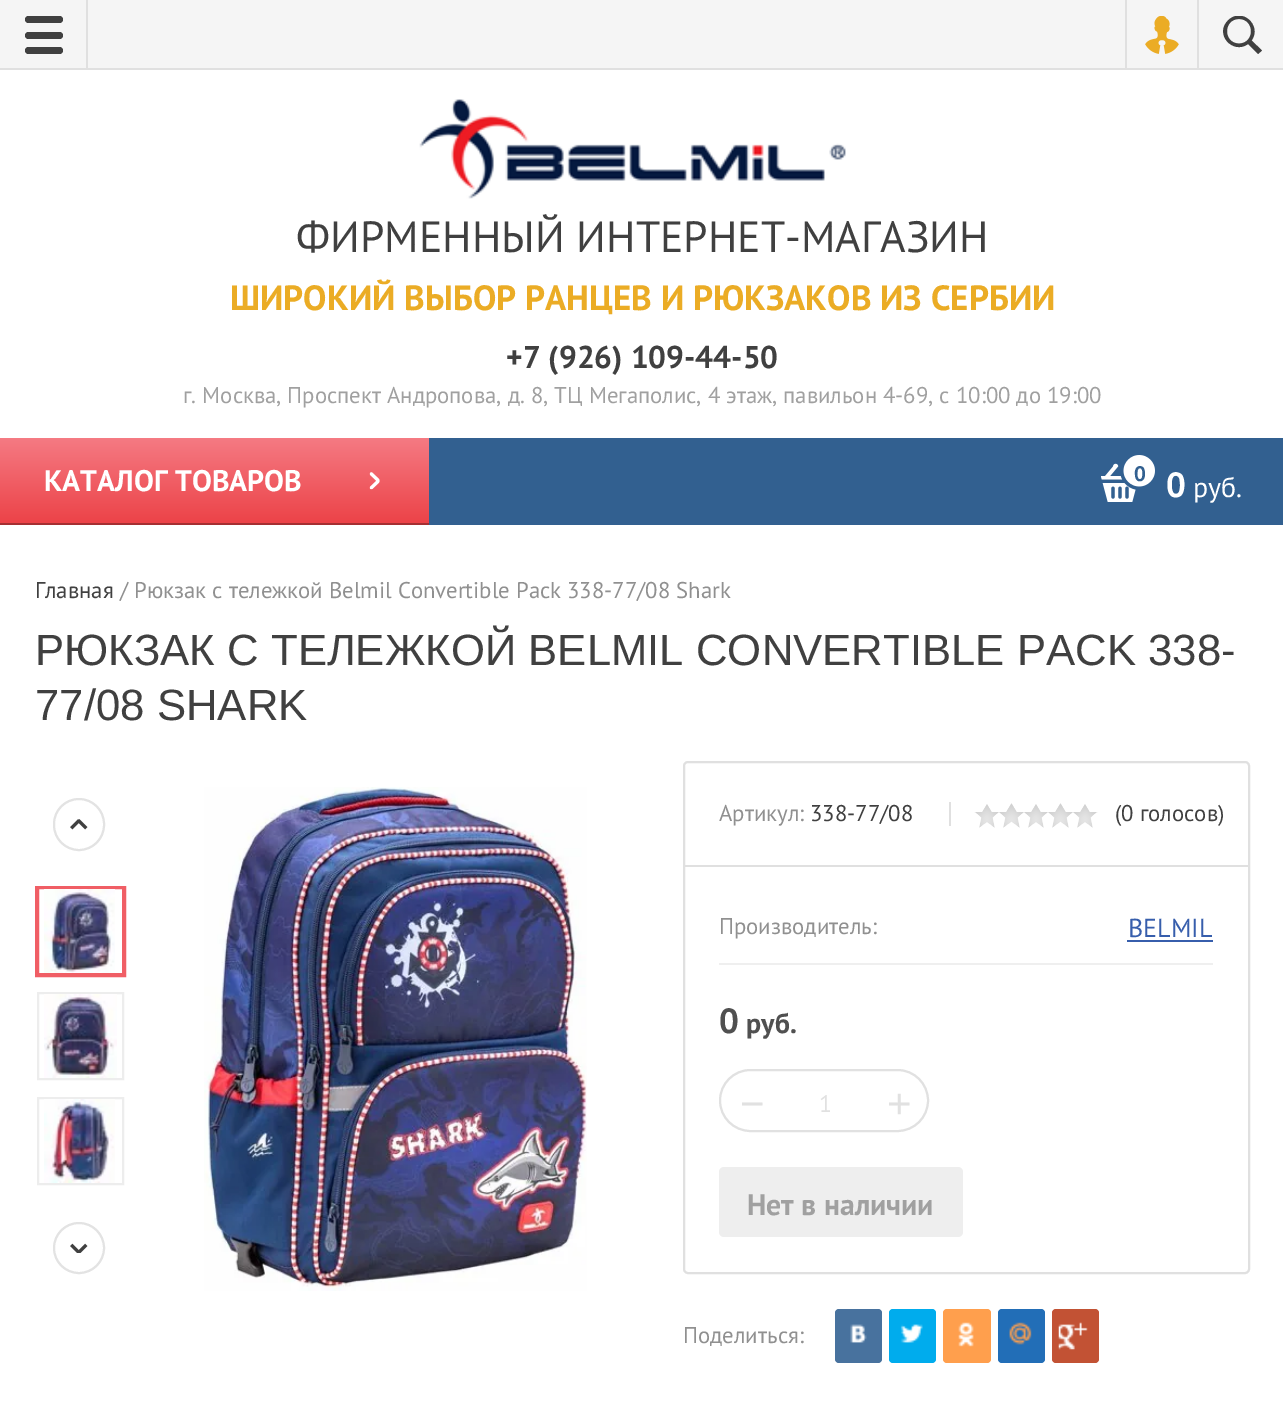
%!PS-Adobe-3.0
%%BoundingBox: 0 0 1283 1415
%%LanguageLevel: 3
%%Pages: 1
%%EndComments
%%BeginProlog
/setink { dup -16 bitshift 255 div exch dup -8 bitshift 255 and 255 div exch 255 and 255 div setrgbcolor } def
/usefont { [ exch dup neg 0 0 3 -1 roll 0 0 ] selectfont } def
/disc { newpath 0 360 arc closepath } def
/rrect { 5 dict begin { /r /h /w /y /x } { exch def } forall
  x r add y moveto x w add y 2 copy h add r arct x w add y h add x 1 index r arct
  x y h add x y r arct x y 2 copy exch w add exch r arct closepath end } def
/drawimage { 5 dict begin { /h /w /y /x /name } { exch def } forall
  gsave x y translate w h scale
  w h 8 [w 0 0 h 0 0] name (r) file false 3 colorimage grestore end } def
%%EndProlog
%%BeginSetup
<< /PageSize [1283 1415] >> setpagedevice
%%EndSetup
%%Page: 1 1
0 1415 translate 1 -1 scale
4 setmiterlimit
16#FFFFFF setink
0 0 1283 1415 rectfill
[
    [0 0 1283 68 16#F5F5F5]
    [0 68 1283 2 16#E0E0E0]
    [86 0 2 70 16#E0E0E0]
] { aload pop setink rectfill } forall
16#404040 setink
25 16 38 7 3.5 rrect fill
25 32 38 7 3.5 rrect fill
25 47 38 7 3.5 rrect fill
(img1.raw) 1145 16 34 38 drawimage
16#E0E0E0 setink
1125 0 2 70 rectfill
gsave
1223 16 39 38 rectclip
16#404040 setink
1262 50.5 moveto 1258 54 lineto 1248 44 lineto 1233 55 1214 34 1228 20.5 curveto 1241.5 6.5 1262.5 25.5 1251.5 40.5 curveto closepath 1239 19 moveto 1223 19 1223 43.5 1239 43.5 curveto 1255 43.5 1255 19 1239 19 curveto closepath eofill
grestore
1197 0 2 70 rectfill
(img2.raw) 419 99 427 100 drawimage
/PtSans-Regular 43.75 usefont
16#404040 setink
296 252 moveto (ФИРМЕННЫЙ ИНТЕРНЕТ-МАГАЗИН) show
/PtSans-Bold 35 usefont
16#EBAC25 setink
230 310 moveto (ШИРОКИЙ ВЫБОР РАНЦЕВ И РЮКЗАКОВ ИЗ СЕРБИИ) show
/PtSans-Bold 31.5 usefont
16#404040 setink
506 368 moveto (+7 \(926\) 109-44-50) show
/PtSans-Regular 22.75 usefont
16#A0A0A0 setink
183 403 moveto (г. Москва, Проспект Андропова, д. 8, ТЦ Мегаполис, 4 этаж, павильон 4-69, с 10:00 до 19:00) show
16#326090 setink
429 438 854 87 rectfill
gsave 0 438 moveto 429 438 lineto 429 523 lineto 0 523 lineto closepath clip newpath
<< /ShadingType 2 /ColorSpace /DeviceRGB /Coords [214 525 214 438] /Extend [true true] /Function << /FunctionType 2 /Domain [0 1] /C0 [0.925 0.259 0.278] /C1 [0.961 0.478 0.514] /N 1 >> >> shfill grestore
16#A52F32 setink
0 523 429 2 rectfill
/PtSans-Bold 29.75 usefont
16#FFFFFF setink
44 491 moveto (КАТАЛОГ ТОВАРОВ) show
(img3.raw) 369 472 11 18 drawimage
(img4.raw) 1101 455 54 47 drawimage
/PtSans-Bold 21 usefont
16#326090 setink
1134 481 moveto (0) show
/PtSans-Bold 35 usefont
16#FFFFFF setink
1166 497 moveto (0) show
/PtSans-Regular 28 usefont
1193 497 moveto (руб.) show
/PtSans-Regular 22.75 usefont
16#404040 setink
35 598 moveto (Главная) show
16#909090 setink
120 598 moveto (/ Рюкзак с тележкой Belmil Convertible Pack 338-77/08 Shark) show
/LiberationSans-Regular 43.75 usefont
16#404040 setink
35 665 moveto (РЮКЗАК С ТЕЛЕЖКОЙ BELMIL CONVERTIBLE PACK 338-) show
35 720 moveto (77/08 SHARK) show
16#E3E3E3 setink
2 setlinewidth
54 799 50 51 25 rrect stroke
(img5.raw) 70 819 18 11 drawimage
79 1248 25 disc stroke
(img6.raw) 70 1243 18 10 drawimage
16#F05E65 setink
38 888 85 86 rectstroke
(img7.raw) 44 889 71 84 drawimage
36 887 89 89 rectstroke
16#EDEDED setink
38 993 85 86 rectstroke
(img8.raw) 44 994 73 84 drawimage
38 1098 85 86 rectstroke
(img9.raw) 44 1099 71 84 drawimage
(img10.raw) 204 787 383 504 drawimage
16#E0E0E0 setink
684 762 565 511 4 rrect stroke
684 865 564 2 rectfill
949 802 2 24 rectfill
/PtSans-Regular 22.75 usefont
16#909090 setink
719 821 moveto (Артикул:) show
16#404040 setink
810 821 moveto (338-77/08) show
(img11.raw) 974 803 124 25 drawimage
1115 821 moveto (\(0 голосов\)) show
16#EFEFEF setink
719 963 494 2 rectfill
16#909090 setink
719 934 moveto (Производитель:) show
/PtSans-Regular 26 usefont
16#375EAC setink
1128 937 moveto (BELMIL) show
1127 940 86 2 rectfill
/PtSans-Bold 35 usefont
16#505050 setink
719 1033 moveto (0) show
/PtSans-Bold 28 usefont
746 1033 moveto (руб.) show
16#E1E1E1 setink
720 1070 208 61 30.5 rrect stroke
/LiberationSans-Regular 42 usefont
740 1118 moveto (−) show
/PtSans-Regular 24 usefont
819 1112 moveto (1) show
/LiberationSans-Regular 42 usefont
887 1118 moveto (+) show
16#EEEEEE setink
719 1167 244 70 5 rrect fill
/PtSans-Bold 29.75 usefont
16#A0A0A0 setink
747 1215 moveto (Нет в наличии) show
/PtSans-Regular 22.75 usefont
16#909090 setink
683 1343 moveto (Поделиться:) show
16#48729E setink
835 1309 47 54 4 rrect fill
(img12.raw) 850 1324 17 19 drawimage
16#00ACED setink
889 1309 47 54 4 rrect fill
(img13.raw) 900 1324 23 19 drawimage
16#FF9F4D setink
943 1309 48 54 4 rrect fill
(img14.raw) 958 1322 16 25 drawimage
16#226EB7 setink
998 1309 47 54 4 rrect fill
(img15.raw) 1009 1322 23 23 drawimage
16#C25234 setink
1052 1309 47 54 4 rrect fill
(img16.raw) 1058 1322 30 28 drawimage
showpage
%%EOF
